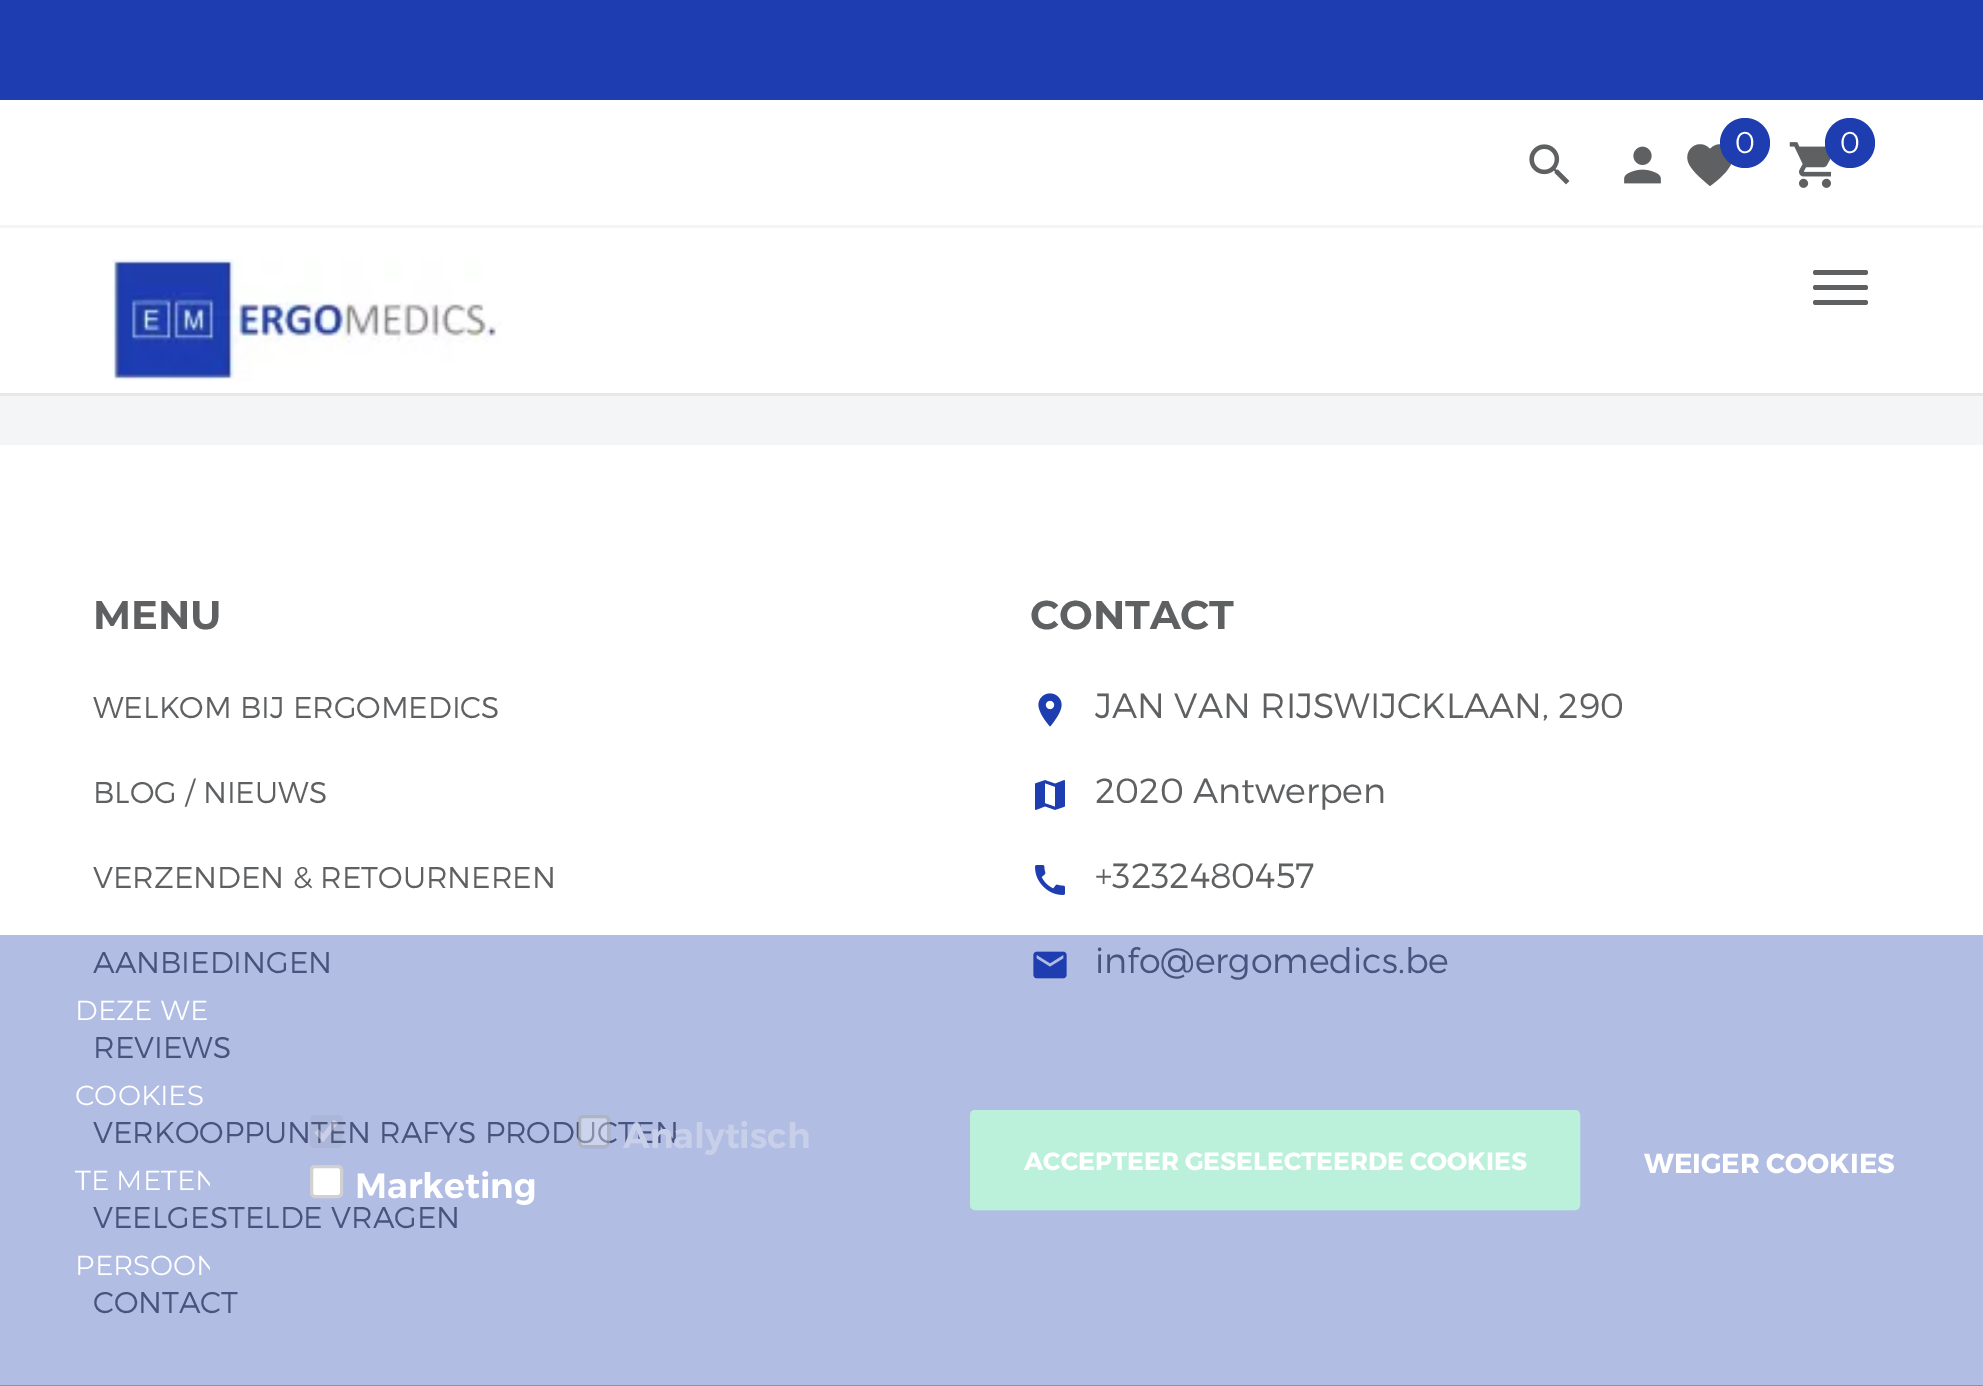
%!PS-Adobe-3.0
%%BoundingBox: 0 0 1983 1386
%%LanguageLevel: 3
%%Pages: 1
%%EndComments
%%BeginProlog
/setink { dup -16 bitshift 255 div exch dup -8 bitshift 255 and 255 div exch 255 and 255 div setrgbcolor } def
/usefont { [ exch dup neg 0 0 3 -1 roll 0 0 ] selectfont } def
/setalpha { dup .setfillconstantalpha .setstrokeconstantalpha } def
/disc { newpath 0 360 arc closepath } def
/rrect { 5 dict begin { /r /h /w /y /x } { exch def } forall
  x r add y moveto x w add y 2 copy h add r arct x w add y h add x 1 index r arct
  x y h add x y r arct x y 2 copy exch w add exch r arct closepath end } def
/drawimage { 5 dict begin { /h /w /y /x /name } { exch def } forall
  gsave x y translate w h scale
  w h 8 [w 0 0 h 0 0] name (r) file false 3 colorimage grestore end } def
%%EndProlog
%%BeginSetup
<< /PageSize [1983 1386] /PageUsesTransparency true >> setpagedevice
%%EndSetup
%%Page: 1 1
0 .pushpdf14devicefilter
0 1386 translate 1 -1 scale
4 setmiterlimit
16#F4F5F6 setink
0 0 1983 1386 rectfill
[
    [0 100 1983 293 16#FFFFFF]
    [0 393 1983 3 16#E7E7E7]
    [0 0 1983 100 16#1E3DB0]
] { aload pop setink rectfill } forall
(img1.raw) 1529 144 41 41 drawimage
(img2.raw) 1624 146 37 38 drawimage
16#5E6062 setink
1710 186 moveto 1703 180 1693 172 1689 164 curveto 1682 150 1699 137 1710 149 curveto 1720 138 1737 148 1732 162 curveto 1728 172 1718 180 1710 186 curveto closepath fill
16#1E3DB0 setink
1745 143 25 disc fill
/Montserrat-Regular 30 usefont
16#FFFFFF setink
1735 153 moveto (0) show
(img3.raw) 1789 142 42 46 drawimage
16#1E3DB0 setink
1850 143 25 disc fill
16#FFFFFF setink
1840 153 moveto (0) show
16#F4F5F6 setink
0 225 1983 3 rectfill
(img4.raw) 112 259 390 122 drawimage
16#5E6062 setink
1813 270 55 5 2.5 rrect fill
1813 285 55 5 2.5 rrect fill
1813 300 55 5 2.5 rrect fill
16#FFFFFF setink
0 445 1983 490 rectfill
16#B2BDE4 setink
0 935 1983 451 rectfill
/Montserrat-Bold 40 usefont
16#5E6062 setink
93 629 moveto (MENU) show
/Montserrat-Light 30 usefont
[
    [(WELKOM BIJ ERGOMEDICS) 93 718]
    [(BLOG / NIEUWS) 93 803]
    [(VERZENDEN & RETOURNEREN) 93 888]
] { aload pop moveto show } forall
16#48547D setink
[
    [(AANBIEDINGEN) 93 973]
    [(REVIEWS) 93 1058]
    [(VERKOOPPUNTEN RAFYS PRODUCTEN) 93 1143]
    [(VEELGESTELDE VRAGEN) 93 1228]
    [(CONTACT) 93 1313]
] { aload pop moveto show } forall
/Montserrat-Bold 40 usefont
16#5E6062 setink
1030 629 moveto (CONTACT) show
(img5.raw) 1038 693 24 34 drawimage
/Montserrat-Light 35 usefont
1095 718 moveto (JAN VAN RIJSWIJCKLAAN, 290) show
(img6.raw) 1035 780 30 30 drawimage
1095 803 moveto (2020 Antwerpen) show
(img7.raw) 1035 865 30 30 drawimage
1095 888 moveto (+3232480457) show
(img8.raw) 1033 951 34 28 drawimage
16#48547D setink
1095 973 moveto (info@ergomedics.be) show
0.34 setalpha
16#1E3DB0 setink
0 1385 1983 1 rectfill
/Montserrat-Regular 27.5 usefont
1 setalpha
16#FFFFFF setink
75 1020 moveto (DEZE WE) show
75 1105 moveto (COOKIES) show
gsave
25 960 185 400 rectclip
75 1190 moveto (TE METEN) show
75 1275 moveto (PERSOON) show
grestore
0.1 setalpha
16#767676 setink
310 1115 33 33 5 rrect fill
0.34 setalpha
16#FFFFFF setink
5.2 setlinewidth
316.5 1131 moveto 323 1138 lineto 336 1121.5 lineto stroke
578 1115 32 33 5 rrect fill
16#767676 setink
3 setlinewidth
579.5 1116.5 29 30 3.5 rrect stroke
/Montserrat-SemiBold 35 usefont
1 setalpha
16#C8CFE9 setink
623 1148 moveto (Analytisch) show
16#FFFFFF setink
311.5 1166.5 30 30 3.5 rrect gsave fill grestore
16#D1D1D1 setink
stroke
16#FFFFFF setink
355 1198 moveto (Marketing) show
16#BBF0DB setink
971.5 1111.5 607 97 3.5 rrect gsave fill grestore
stroke
/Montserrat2-Bold 25 usefont
16#FFFFFF setink
1024 1170 moveto (ACCEPTEER GESELECTEERDE COOKIES) show
/Montserrat2-Bold 27.5 usefont
1644 1173 moveto (WEIGER COOKIES) show
.poppdf14devicefilter showpage
%%EOF
